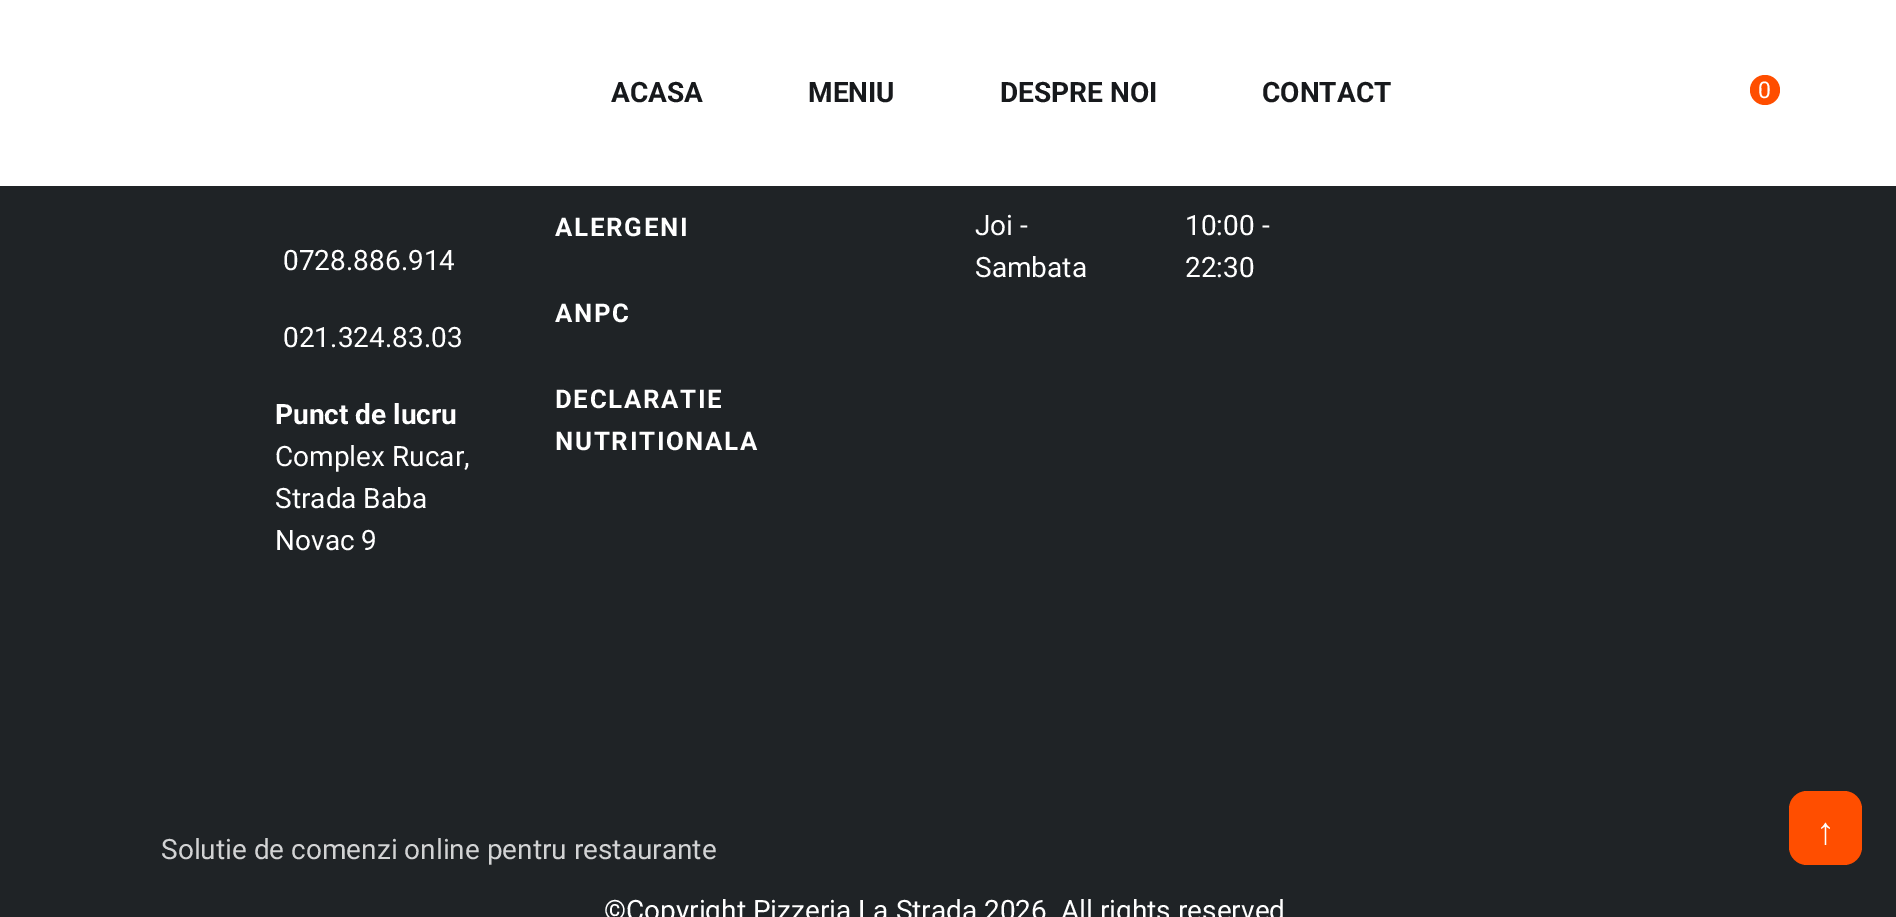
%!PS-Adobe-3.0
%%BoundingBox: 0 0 1896 917
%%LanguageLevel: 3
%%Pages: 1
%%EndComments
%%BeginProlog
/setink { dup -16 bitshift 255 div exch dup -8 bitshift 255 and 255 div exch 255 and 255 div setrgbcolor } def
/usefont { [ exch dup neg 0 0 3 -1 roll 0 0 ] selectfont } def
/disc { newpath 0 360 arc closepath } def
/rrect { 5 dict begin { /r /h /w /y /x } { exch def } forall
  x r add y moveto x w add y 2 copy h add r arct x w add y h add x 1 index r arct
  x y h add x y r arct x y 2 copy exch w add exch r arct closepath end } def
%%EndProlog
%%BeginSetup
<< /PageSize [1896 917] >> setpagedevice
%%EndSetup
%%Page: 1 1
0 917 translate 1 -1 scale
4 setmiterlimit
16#1F2326 setink
0 0 1896 917 rectfill
16#FFFFFF setink
0 0 1896 186 rectfill
/Roboto-Bold 28 usefont
16#17191C setink
[
    [(ACASA) 611 102]
    [(MENIU) 808 102]
    [(DESPRE NOI) 1000 102]
    [(CONTACT) 1262 102]
] { aload pop moveto show } forall
16#FF4E00 setink
1765 90 15 disc fill
/Roboto-Regular 23 usefont
16#FFFFFF setink
1758 98 moveto (0) show
/Roboto-Regular 28 usefont
283 270 moveto (0728.886.914) show
283 347 moveto (021.324.83.03) show
/Roboto-Bold 28 usefont
275 424 moveto (Punct de lucru) show
/Roboto-Regular 28 usefont
[
    [(Complex Rucar,) 275 466]
    [(Strada Baba) 275 508]
    [(Novac 9) 275 550]
] { aload pop moveto show } forall
/Roboto-Bold 25.75 usefont
555 236 moveto 1.75 0 (ALERGENI) ashow
555 322 moveto 1.75 0 (ANPC) ashow
555 408 moveto 1.75 0 (DECLARATIE) ashow
555 450 moveto 1.75 0 (NUTRITIONALA) ashow
/Roboto-Regular 28 usefont
[
    [(Joi -) 975 235]
    [(Sambata) 975 277]
    [(10:00 -) 1185 235]
    [(22:30) 1185 277]
] { aload pop moveto show } forall
16#FF4E00 setink
1789 791 73 74 18 rrect fill
/LiberationSans-Regular 38 usefont
16#FFFFFF setink
1816 844 moveto (↑) show
/Roboto-Regular 28 usefont
16#D2D3D4 setink
161 859 moveto (Solutie de comenzi online pentru restaurante) show
16#FFFFFF setink
604 920 moveto (©Copyright Pizzeria La Strada 2026) show
1061 920 moveto (All rights reserved) show
showpage
%%EOF
